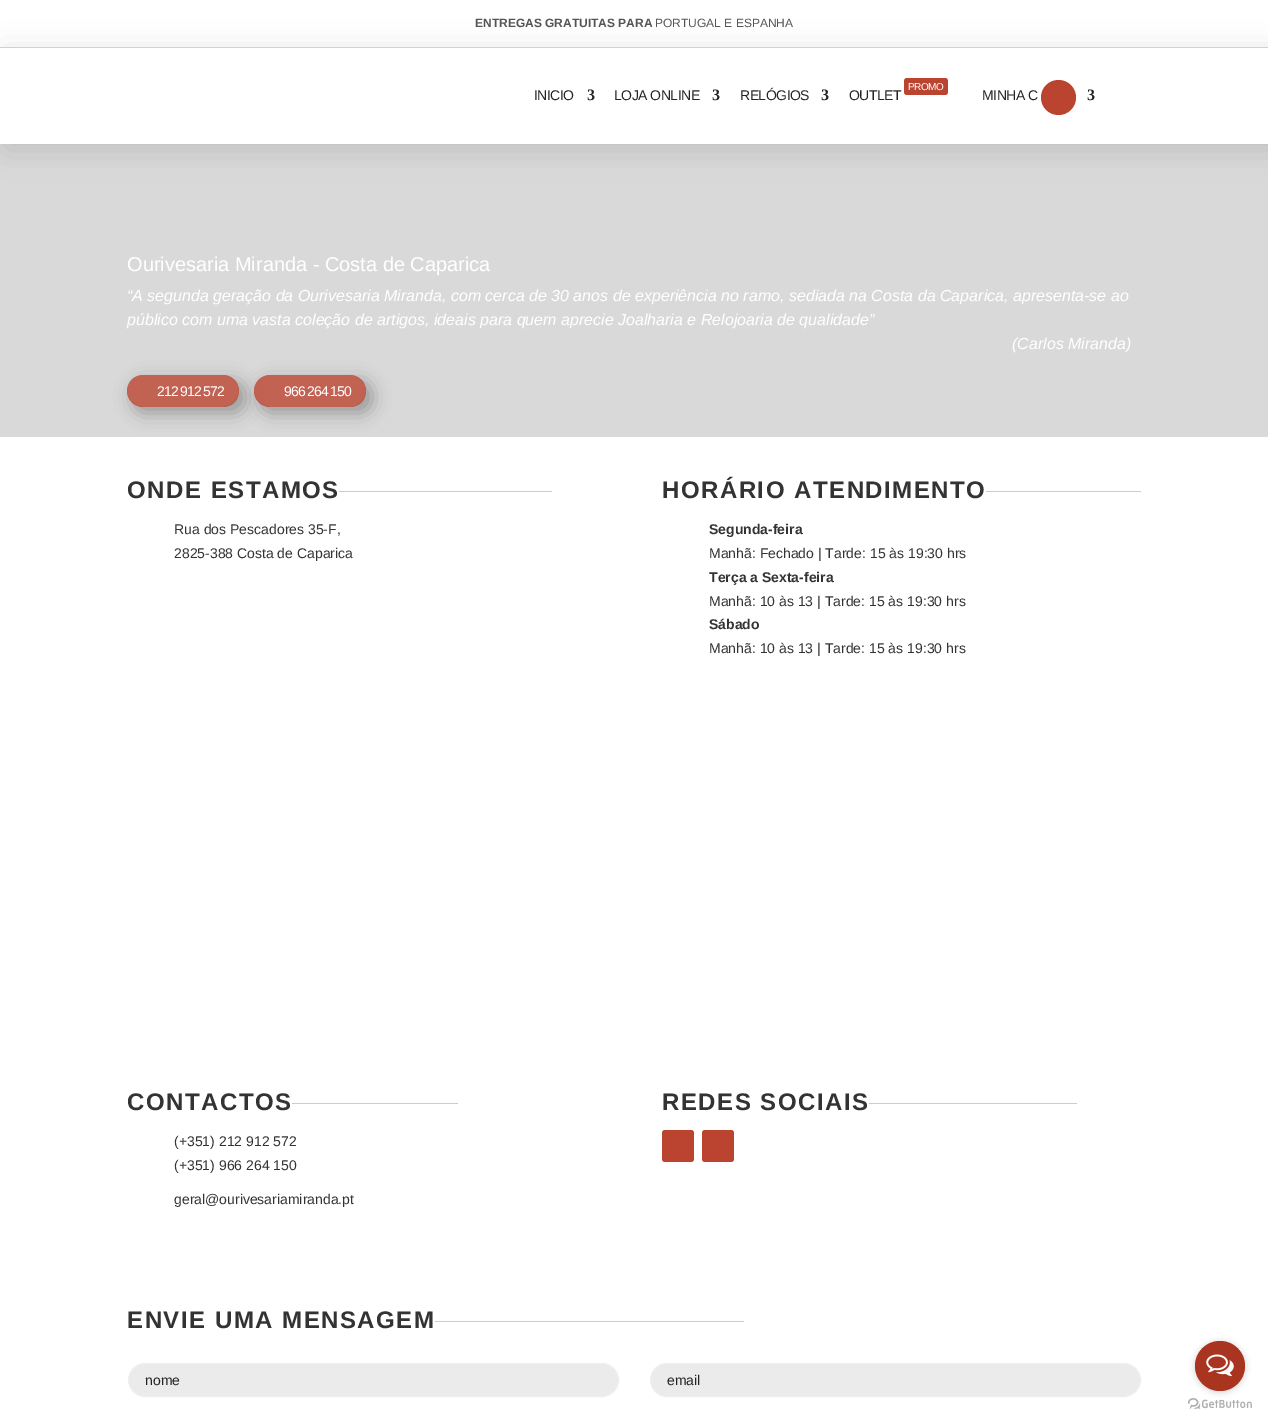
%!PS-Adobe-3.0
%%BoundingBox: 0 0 1268 1425
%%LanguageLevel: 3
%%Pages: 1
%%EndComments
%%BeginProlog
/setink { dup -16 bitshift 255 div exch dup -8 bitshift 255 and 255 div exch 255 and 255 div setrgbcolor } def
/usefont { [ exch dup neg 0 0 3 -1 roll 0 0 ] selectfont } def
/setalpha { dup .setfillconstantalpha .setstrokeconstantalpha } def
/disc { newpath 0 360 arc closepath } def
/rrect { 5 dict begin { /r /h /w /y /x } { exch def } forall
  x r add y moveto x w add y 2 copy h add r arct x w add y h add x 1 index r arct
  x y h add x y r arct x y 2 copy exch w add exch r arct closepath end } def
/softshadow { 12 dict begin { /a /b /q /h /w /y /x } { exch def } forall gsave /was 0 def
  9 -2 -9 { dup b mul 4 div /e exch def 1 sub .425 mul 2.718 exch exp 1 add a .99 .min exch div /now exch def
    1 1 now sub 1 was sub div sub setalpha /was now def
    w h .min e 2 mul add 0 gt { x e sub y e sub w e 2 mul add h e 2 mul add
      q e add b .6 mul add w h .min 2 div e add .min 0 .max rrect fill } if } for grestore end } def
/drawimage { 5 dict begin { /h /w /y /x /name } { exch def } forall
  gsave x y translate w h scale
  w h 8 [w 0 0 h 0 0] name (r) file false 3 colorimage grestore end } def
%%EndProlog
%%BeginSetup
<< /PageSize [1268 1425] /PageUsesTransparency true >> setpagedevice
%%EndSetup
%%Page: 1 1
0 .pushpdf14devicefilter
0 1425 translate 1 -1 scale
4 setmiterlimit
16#FFFFFF setink
0 0 1268 1425 rectfill
16#DADADA setink
0 47 1268 1 rectfill
/LiberationSans-Bold 12 usefont
16#555555 setink
475 27 moveto (ENTREGAS GRATUITAS PARA) show
/LiberationSans-Regular 12 usefont
655 27 moveto (PORTUGAL E ESPANHA) show
16#D9D9D9 setink
0 144 1268 293 rectfill
gsave
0 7 moveto 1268 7 lineto 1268 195 lineto 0 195 lineto closepath 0 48 moveto 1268 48 lineto 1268 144 lineto 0 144 lineto closepath eoclip newpath
16#000000 setink
6 53 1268 96 0 15 0.12 softshadow
grestore
16#BB4430 setink
1058.5 97.5 17.5 disc fill
/LiberationSans-Regular 14 usefont
16#242424 setink
534 100 moveto -0.5 0 (INICIO) ashow
/LiberationSerif-Bold 16 usefont
587 100 moveto -0.5 0 (3) ashow
/LiberationSans-Regular 14 usefont
614 100 moveto -0.5 0 (LOJA ONLINE) ashow
/LiberationSerif-Bold 16 usefont
712 100 moveto -0.5 0 (3) ashow
/LiberationSans-Regular 14 usefont
740 100 moveto -0.5 0 (RELÓGIOS) ashow
/LiberationSerif-Bold 16 usefont
821 100 moveto -0.5 0 (3) ashow
16#BB4430 setink
904 78 44 17 3 rrect fill
/LiberationSans-Regular 10 usefont
16#FFFFFF setink
908 90 moveto -0.5 0 (PROMO) ashow
/LiberationSans-Regular 14 usefont
16#242424 setink
849 100 moveto -0.5 0 (OUTLET) ashow
982 100 moveto -0.5 0 (MINHA C) ashow
/LiberationSerif-Bold 16 usefont
1087 100 moveto -0.5 0 (3) ashow
/LiberationSans-Regular 20 usefont
16#FFFFFF setink
127 271 moveto (Ourivesaria Miranda - Costa de Caparica) show
/LiberationSans-Italic 16 usefont
[
    [(“A segunda geração da Ourivesaria Miranda, com cerca de 30 anos de experiência no ramo, sediada na Costa da Caparica, apresenta-se ao) 127 301]
    [(público com uma vasta coleção de artigos, ideais para quem aprecie Joalharia e Relojoaria de qualidade”) 127 325]
    [(\(Carlos Miranda\)) 1012 349]
] { aload pop moveto show } forall
gsave
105 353 moveto 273 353 lineto 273 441 lineto 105 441 lineto closepath 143 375 moveto 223 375 lineto 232 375 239 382 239 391 curveto 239 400 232 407 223 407 curveto 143 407 lineto 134 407 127 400 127 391 curveto 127 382 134 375 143 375 curveto closepath eoclip newpath
16#000000 setink
133 381 112 32 16 9 0.3 softshadow
grestore
0.8 setalpha
16#BB4430 setink
127 375 112 32 16 rrect fill
/LiberationSans-Regular 14 usefont
1 setalpha
16#FFFFFF setink
157 396 moveto -1 0 (212 912 572) ashow
gsave
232 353 moveto 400 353 lineto 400 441 lineto 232 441 lineto closepath 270 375 moveto 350 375 lineto 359 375 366 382 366 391 curveto 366 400 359 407 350 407 curveto 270 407 lineto 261 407 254 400 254 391 curveto 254 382 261 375 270 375 curveto closepath eoclip newpath
16#000000 setink
260 381 112 32 16 9 0.3 softshadow
grestore
0.8 setalpha
16#BB4430 setink
254 375 112 32 16 rrect fill
1 setalpha
16#FFFFFF setink
284 396 moveto -1 0 (966 264 150) ashow
/LiberationSans-Bold 24 usefont
16#333333 setink
127 498 moveto 1.5 0 (ONDE ESTAMOS) ashow
16#CCCCCC setink
339 491 213 1 rectfill
/LiberationSans-Regular 14 usefont
16#333333 setink
174 534 moveto (Rua dos Pescadores 35-F,) show
174 558 moveto (2825-388 Costa de Caparica) show
/LiberationSans-Bold 24 usefont
662 498 moveto 1.5 0 (HORÁRIO ATENDIMENTO) ashow
16#CCCCCC setink
986 491 155 1 rectfill
/LiberationSans-Bold 14 usefont
16#333333 setink
709 534 moveto (Segunda-feira) show
/LiberationSans-Regular 14 usefont
709 558 moveto (Manhã: Fechado | Tarde: 15 às 19:30 hrs) show
/LiberationSans-Bold 14 usefont
709 582 moveto (Terça a Sexta-feira) show
/LiberationSans-Regular 14 usefont
709 606 moveto (Manhã: 10 às 13 | Tarde: 15 às 19:30 hrs) show
/LiberationSans-Bold 14 usefont
709 629 moveto (Sábado) show
/LiberationSans-Regular 14 usefont
709 653 moveto (Manhã: 10 às 13 | Tarde: 15 às 19:30 hrs) show
/LiberationSans-Bold 24 usefont
127 1110 moveto 1.5 0 (CONTACTOS) ashow
16#CCCCCC setink
292 1103 166 1 rectfill
/LiberationSans-Regular 14 usefont
16#333333 setink
[
    [(\(+351\) 212 912 572) 174 1146]
    [(\(+351\) 966 264 150) 174 1170]
    [(geral@ourivesariamiranda.pt) 174 1204]
] { aload pop moveto show } forall
/LiberationSans-Bold 24 usefont
662 1110 moveto 1.5 0 (REDES SOCIAIS) ashow
16#CCCCCC setink
869 1103 208 1 rectfill
16#BB4430 setink
662 1130 32 32 3 rrect fill
702 1130 32 32 3 rrect fill
16#333333 setink
127 1328 moveto 1.5 0 (ENVIE UMA MENSAGEM) ashow
16#CCCCCC setink
435 1321 309 1 rectfill
16#EBEBEB setink
128.5 1363.5 490 33 16.5 rrect gsave fill grestore
16#EEEEEE setink
stroke
/LiberationSans-Regular 14 usefont
16#242424 setink
145 1385 moveto (nome) show
16#EBEBEB setink
650.5 1363.5 490 33 16.5 rrect gsave fill grestore
16#EEEEEE setink
stroke
16#242424 setink
667 1385 moveto (email) show
(img2.raw) 1188 1398 64 11 drawimage
16#888888 setink
1195 1342 50 50 25 3.5 0.4 softshadow
16#A9341F setink
1220 1366 25 disc fill
(img1.raw) 1206 1354 28 23 drawimage
.poppdf14devicefilter showpage
%%EOF
